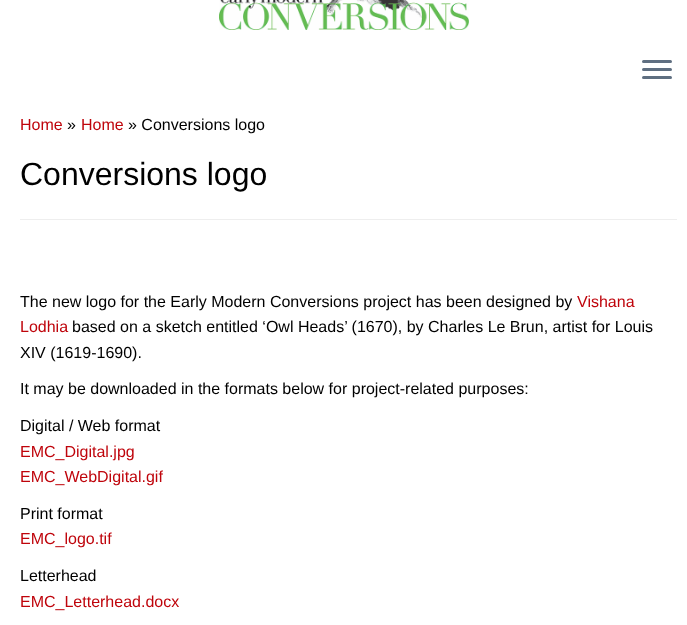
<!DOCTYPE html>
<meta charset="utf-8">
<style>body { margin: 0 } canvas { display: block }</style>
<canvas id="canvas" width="687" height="625"></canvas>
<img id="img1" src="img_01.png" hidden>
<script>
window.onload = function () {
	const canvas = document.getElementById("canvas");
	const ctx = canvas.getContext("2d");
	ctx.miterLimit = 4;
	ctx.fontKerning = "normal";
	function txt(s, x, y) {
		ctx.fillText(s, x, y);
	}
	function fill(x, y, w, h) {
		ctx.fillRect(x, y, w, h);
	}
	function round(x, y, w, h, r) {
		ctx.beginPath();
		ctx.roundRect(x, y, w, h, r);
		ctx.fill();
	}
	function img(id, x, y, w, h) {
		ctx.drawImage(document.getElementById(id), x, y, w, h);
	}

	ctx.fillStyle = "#FFFFFF";
	fill(0, 0, 687, 625);
	img("img1", 219, 0, 250, 30);
	ctx.fillStyle = "#5F6F81";
	round(642, 60, 30, 3, 1.5);
	round(642, 68, 30, 3, 1.5);
	round(642, 76, 30, 3, 1.5);
	ctx.fillStyle = "#EEEEEE";
	fill(20, 219, 657, 1);
	ctx.font = "16px Liberation Sans";
	ctx.fillStyle = "#BF040B";
	txt("Home", 20, 130);
	ctx.fillStyle = "#000000";
	txt("»", 67, 130);
	ctx.fillStyle = "#BF040B";
	txt("Home", 81, 130);
	ctx.fillStyle = "#000000";
	txt("» Conversions logo", 128, 130);
	ctx.font = "32px Liberation Sans";
	txt("Conversions logo", 20, 185);
	ctx.font = "16px Liberation Sans";
	txt("The new logo for the Early Modern Conversions project has been designed by", 20, 307);
	ctx.fillStyle = "#BF040B";
	txt("Vishana", 577, 307);
	txt("Lodhia", 20, 332);
	ctx.fillStyle = "#000000";
	txt("based on a sketch entitled ‘Owl Heads’ (1670), by Charles Le Brun, artist for Louis", 72, 332);
	txt("XIV (1619-1690).", 20, 358);
	txt("It may be downloaded in the formats below for project-related purposes:", 20, 394);
	txt("Digital / Web format", 20, 431);
	ctx.fillStyle = "#BF040B";
	txt("EMC_Digital.jpg", 20, 457);
	txt("EMC_WebDigital.gif", 20, 482);
	ctx.fillStyle = "#000000";
	txt("Print format", 20, 519);
	ctx.fillStyle = "#BF040B";
	txt("EMC_logo.tif", 20, 544);
	ctx.fillStyle = "#000000";
	txt("Letterhead", 20, 581);
	ctx.fillStyle = "#BF040B";
	txt("EMC_Letterhead.docx", 20, 607);
};
</script>
